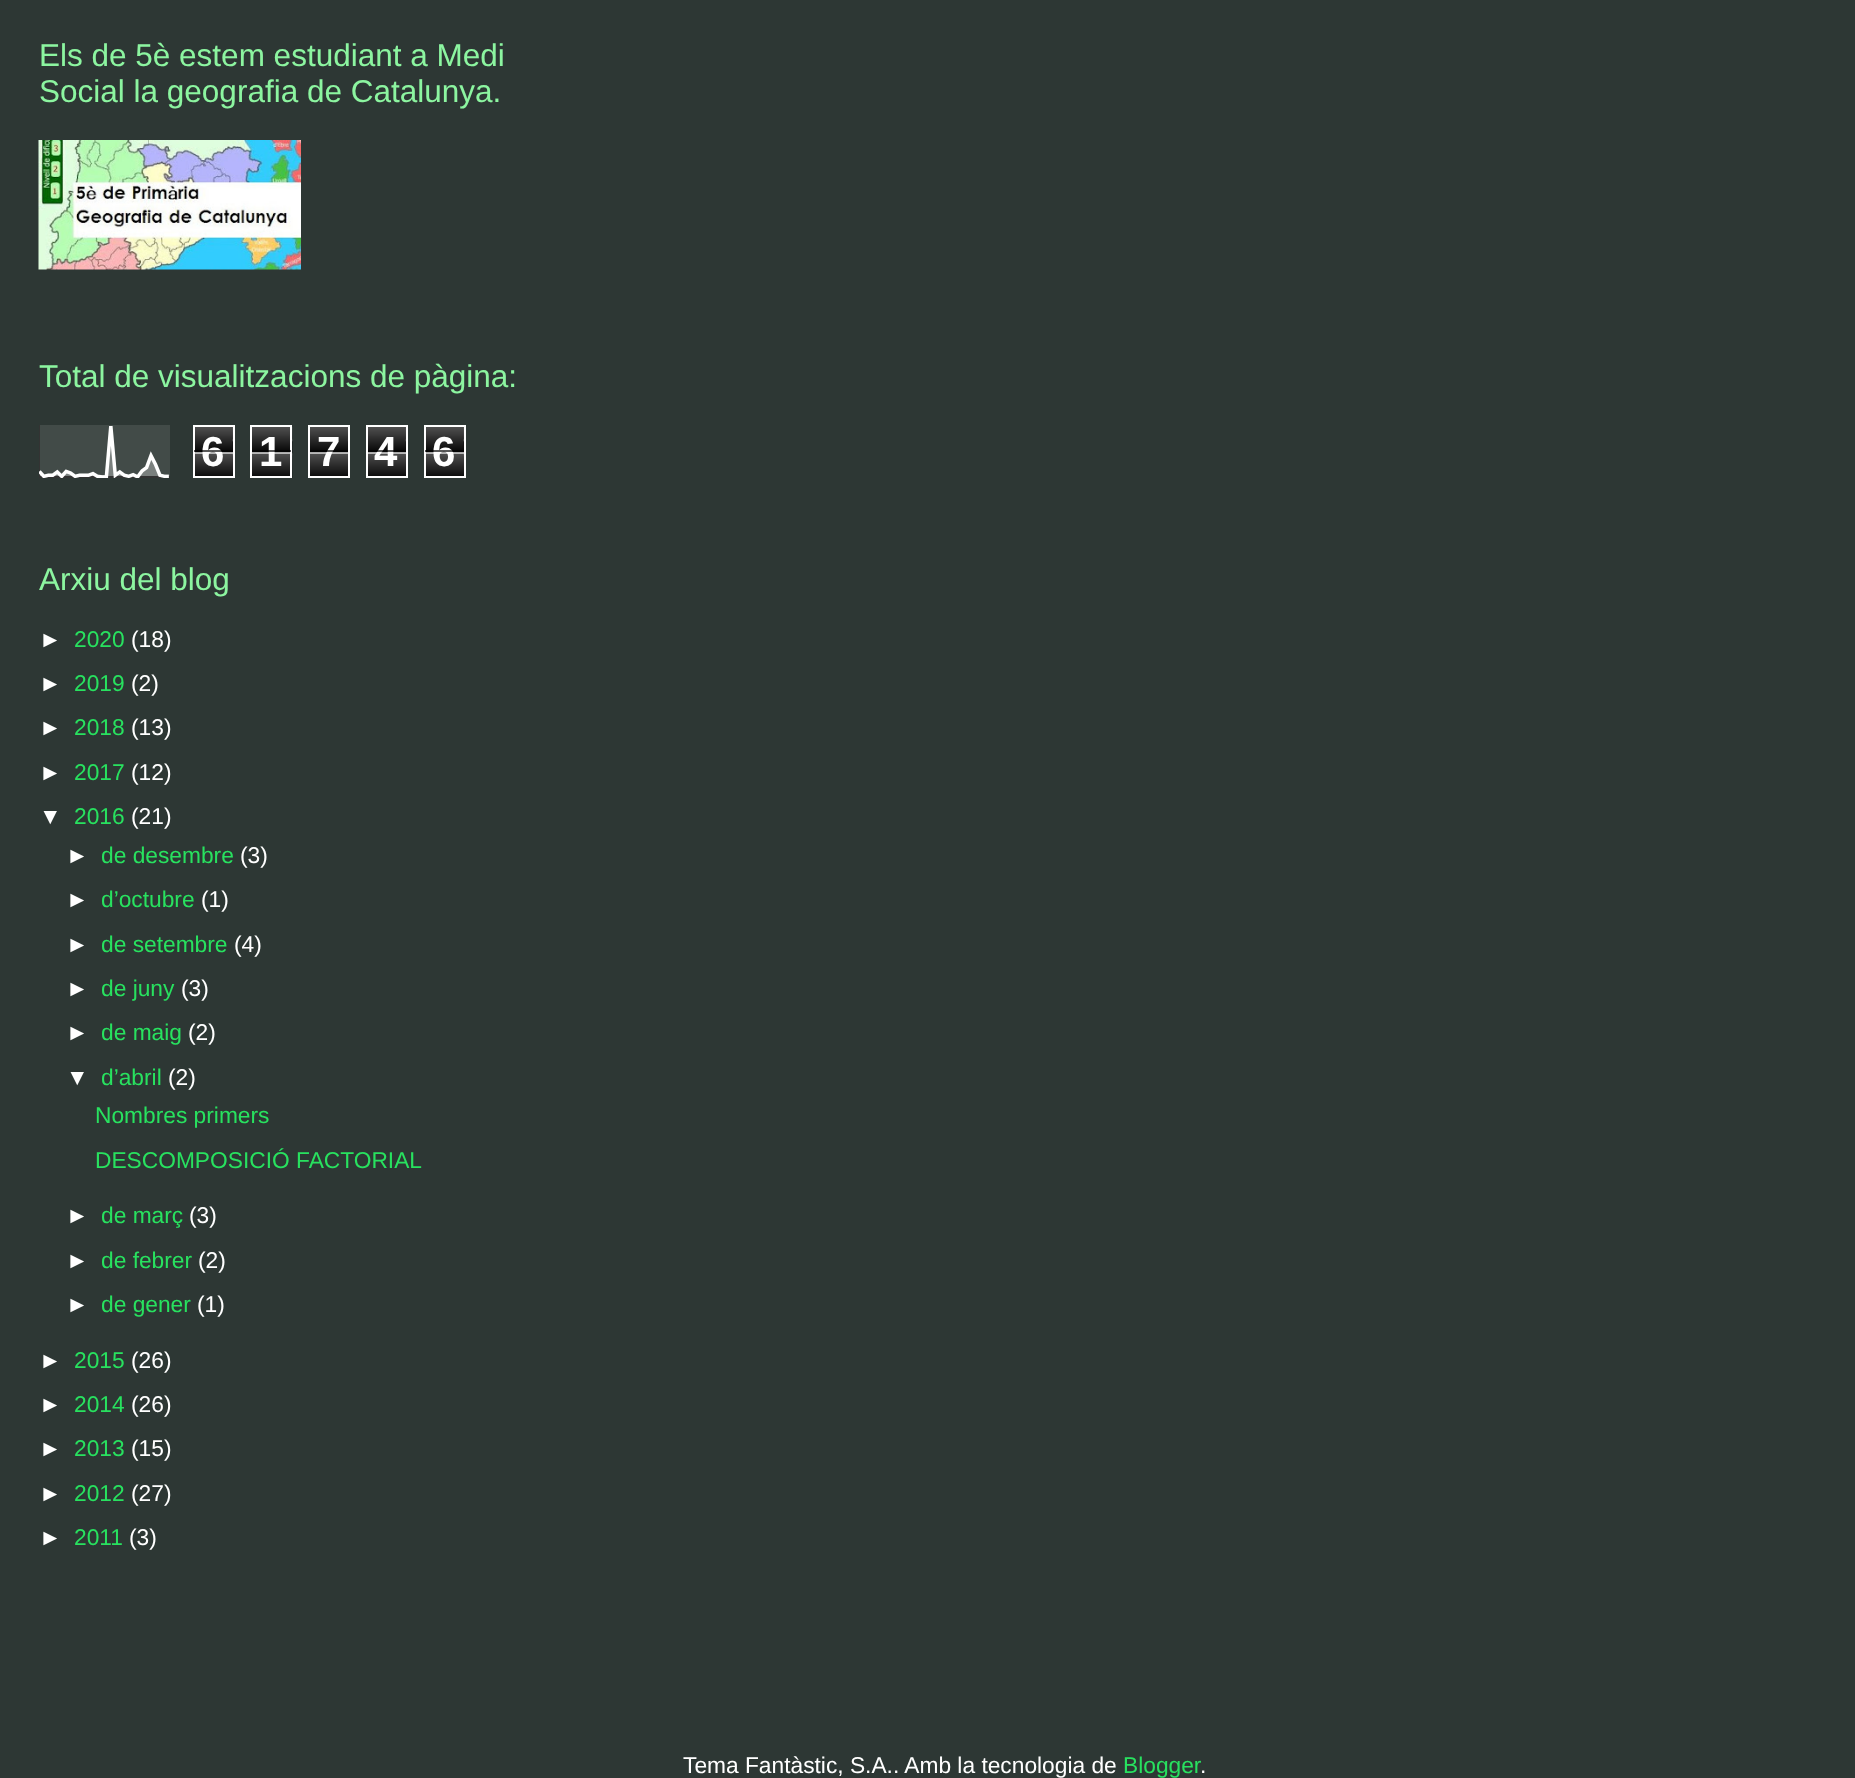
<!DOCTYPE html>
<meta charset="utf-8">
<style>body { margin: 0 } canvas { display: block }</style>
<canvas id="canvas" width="1855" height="1778"></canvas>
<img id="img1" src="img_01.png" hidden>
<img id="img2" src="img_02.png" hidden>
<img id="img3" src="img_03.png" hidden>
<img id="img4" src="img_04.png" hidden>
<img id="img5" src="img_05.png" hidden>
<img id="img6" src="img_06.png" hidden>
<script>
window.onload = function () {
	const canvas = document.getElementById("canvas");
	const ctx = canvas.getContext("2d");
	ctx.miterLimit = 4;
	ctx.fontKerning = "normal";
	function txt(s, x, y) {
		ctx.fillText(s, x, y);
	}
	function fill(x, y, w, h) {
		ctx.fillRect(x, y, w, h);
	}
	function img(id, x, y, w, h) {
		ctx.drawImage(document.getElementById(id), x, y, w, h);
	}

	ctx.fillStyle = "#2D3734";
	fill(0, 0, 1855, 1778);
	img("img1", 38, 140, 263, 130);
	img("img2", 39, 425, 131, 53);
	img("img3", 195, 427, 38, 49);
	ctx.strokeStyle = "#FFFFFF";
	ctx.lineWidth = 2;
	ctx.strokeRect(194, 426, 40, 51);
	img("img4", 252, 427, 41, 51);
	ctx.strokeRect(251, 426, 40, 51);
	img("img5", 310, 427, 38, 49);
	ctx.strokeRect(309, 426, 40, 51);
	img("img6", 368, 427, 38, 49);
	ctx.strokeRect(367, 426, 40, 51);
	img("img3", 426, 427, 38, 49);
	ctx.strokeRect(425, 426, 40, 51);
	ctx.font = "31.5px Liberation Sans";
	ctx.fillStyle = "#8CF5A0";
	txt("Els de 5è estem estudiant a Medi", 39, 66);
	txt("Social la geografia de Catalunya.", 39, 102);
	txt("Total de visualitzacions de pàgina:", 39, 387);
	ctx.font = "bold 42px Liberation Sans";
	ctx.fillStyle = "#FFFFFF";
	txt("6", 201, 466);
	ctx.fillStyle = "rgba(0, 0, 0, 0.65)";
	fill(194, 450, 39, 2);
	ctx.fillStyle = "rgba(255, 255, 255, 0.65)";
	fill(194, 452, 39, 2);
	ctx.fillStyle = "#FFFFFF";
	txt("1", 259, 466);
	ctx.fillStyle = "rgba(0, 0, 0, 0.65)";
	fill(252, 450, 39, 2);
	ctx.fillStyle = "rgba(255, 255, 255, 0.65)";
	fill(252, 452, 39, 2);
	ctx.fillStyle = "#FFFFFF";
	txt("7", 317, 466);
	ctx.fillStyle = "rgba(0, 0, 0, 0.65)";
	fill(310, 450, 38, 2);
	ctx.fillStyle = "rgba(255, 255, 255, 0.65)";
	fill(310, 452, 38, 2);
	ctx.fillStyle = "#FFFFFF";
	txt("4", 374, 466);
	ctx.fillStyle = "rgba(0, 0, 0, 0.65)";
	fill(368, 450, 38, 2);
	ctx.fillStyle = "rgba(255, 255, 255, 0.65)";
	fill(368, 452, 38, 2);
	ctx.fillStyle = "#FFFFFF";
	txt("6", 432, 466);
	ctx.fillStyle = "rgba(0, 0, 0, 0.65)";
	fill(425, 450, 39, 2);
	ctx.fillStyle = "rgba(255, 255, 255, 0.65)";
	fill(425, 452, 39, 2);
	ctx.font = "31.5px Liberation Sans";
	ctx.fillStyle = "#8CF5A0";
	txt("Arxiu del blog", 39, 590);
	ctx.font = "22.75px Liberation Sans";
	ctx.fillStyle = "#FFFFFF";
	txt("►", 39, 647);
	ctx.fillStyle = "#28E15F";
	txt("2020", 74, 647);
	ctx.fillStyle = "#FFFFFF";
	txt("(18)", 131, 647);
	txt("►", 39, 691);
	ctx.fillStyle = "#28E15F";
	txt("2019", 74, 691);
	ctx.fillStyle = "#FFFFFF";
	txt("(2)", 131, 691);
	txt("►", 39, 735);
	ctx.fillStyle = "#28E15F";
	txt("2018", 74, 735);
	ctx.fillStyle = "#FFFFFF";
	txt("(13)", 131, 735);
	txt("►", 39, 780);
	ctx.fillStyle = "#28E15F";
	txt("2017", 74, 780);
	ctx.fillStyle = "#FFFFFF";
	txt("(12)", 131, 780);
	txt("▼", 39, 824);
	ctx.fillStyle = "#28E15F";
	txt("2016", 74, 824);
	ctx.fillStyle = "#FFFFFF";
	txt("(21)", 131, 824);
	txt("►", 66, 863);
	ctx.fillStyle = "#28E15F";
	txt("de desembre", 101, 863);
	ctx.fillStyle = "#FFFFFF";
	txt("(3)", 240, 863);
	txt("►", 66, 907);
	ctx.fillStyle = "#28E15F";
	txt("d’octubre", 101, 907);
	ctx.fillStyle = "#FFFFFF";
	txt("(1)", 201, 907);
	txt("►", 66, 952);
	ctx.fillStyle = "#28E15F";
	txt("de setembre", 101, 952);
	ctx.fillStyle = "#FFFFFF";
	txt("(4)", 234, 952);
	txt("►", 66, 996);
	ctx.fillStyle = "#28E15F";
	txt("de juny", 101, 996);
	ctx.fillStyle = "#FFFFFF";
	txt("(3)", 181, 996);
	txt("►", 66, 1040);
	ctx.fillStyle = "#28E15F";
	txt("de maig", 101, 1040);
	ctx.fillStyle = "#FFFFFF";
	txt("(2)", 188, 1040);
	txt("▼", 66, 1085);
	ctx.fillStyle = "#28E15F";
	txt("d’abril", 101, 1085);
	ctx.fillStyle = "#FFFFFF";
	txt("(2)", 168, 1085);
	ctx.fillStyle = "#28E15F";
	txt("Nombres primers", 95, 1123);
	txt("DESCOMPOSICIÓ FACTORIAL", 95, 1168);
	ctx.fillStyle = "#FFFFFF";
	txt("►", 66, 1223);
	ctx.fillStyle = "#28E15F";
	txt("de març", 101, 1223);
	ctx.fillStyle = "#FFFFFF";
	txt("(3)", 189, 1223);
	txt("►", 66, 1268);
	ctx.fillStyle = "#28E15F";
	txt("de febrer", 101, 1268);
	ctx.fillStyle = "#FFFFFF";
	txt("(2)", 198, 1268);
	txt("►", 66, 1312);
	ctx.fillStyle = "#28E15F";
	txt("de gener", 101, 1312);
	ctx.fillStyle = "#FFFFFF";
	txt("(1)", 197, 1312);
	txt("►", 39, 1368);
	ctx.fillStyle = "#28E15F";
	txt("2015", 74, 1368);
	ctx.fillStyle = "#FFFFFF";
	txt("(26)", 131, 1368);
	txt("►", 39, 1412);
	ctx.fillStyle = "#28E15F";
	txt("2014", 74, 1412);
	ctx.fillStyle = "#FFFFFF";
	txt("(26)", 131, 1412);
	txt("►", 39, 1456);
	ctx.fillStyle = "#28E15F";
	txt("2013", 74, 1456);
	ctx.fillStyle = "#FFFFFF";
	txt("(15)", 131, 1456);
	txt("►", 39, 1501);
	ctx.fillStyle = "#28E15F";
	txt("2012", 74, 1501);
	ctx.fillStyle = "#FFFFFF";
	txt("(27)", 131, 1501);
	txt("►", 39, 1545);
	ctx.fillStyle = "#28E15F";
	txt("2011", 74, 1545);
	ctx.fillStyle = "#FFFFFF";
	txt("(3)", 129, 1545);
	txt("Tema Fantàstic, S.A.. Amb la tecnologia de", 683, 1773);
	ctx.fillStyle = "#28E15F";
	txt("Blogger", 1123, 1773);
	ctx.fillStyle = "#FFFFFF";
	txt(".", 1200, 1773);
};
</script>
